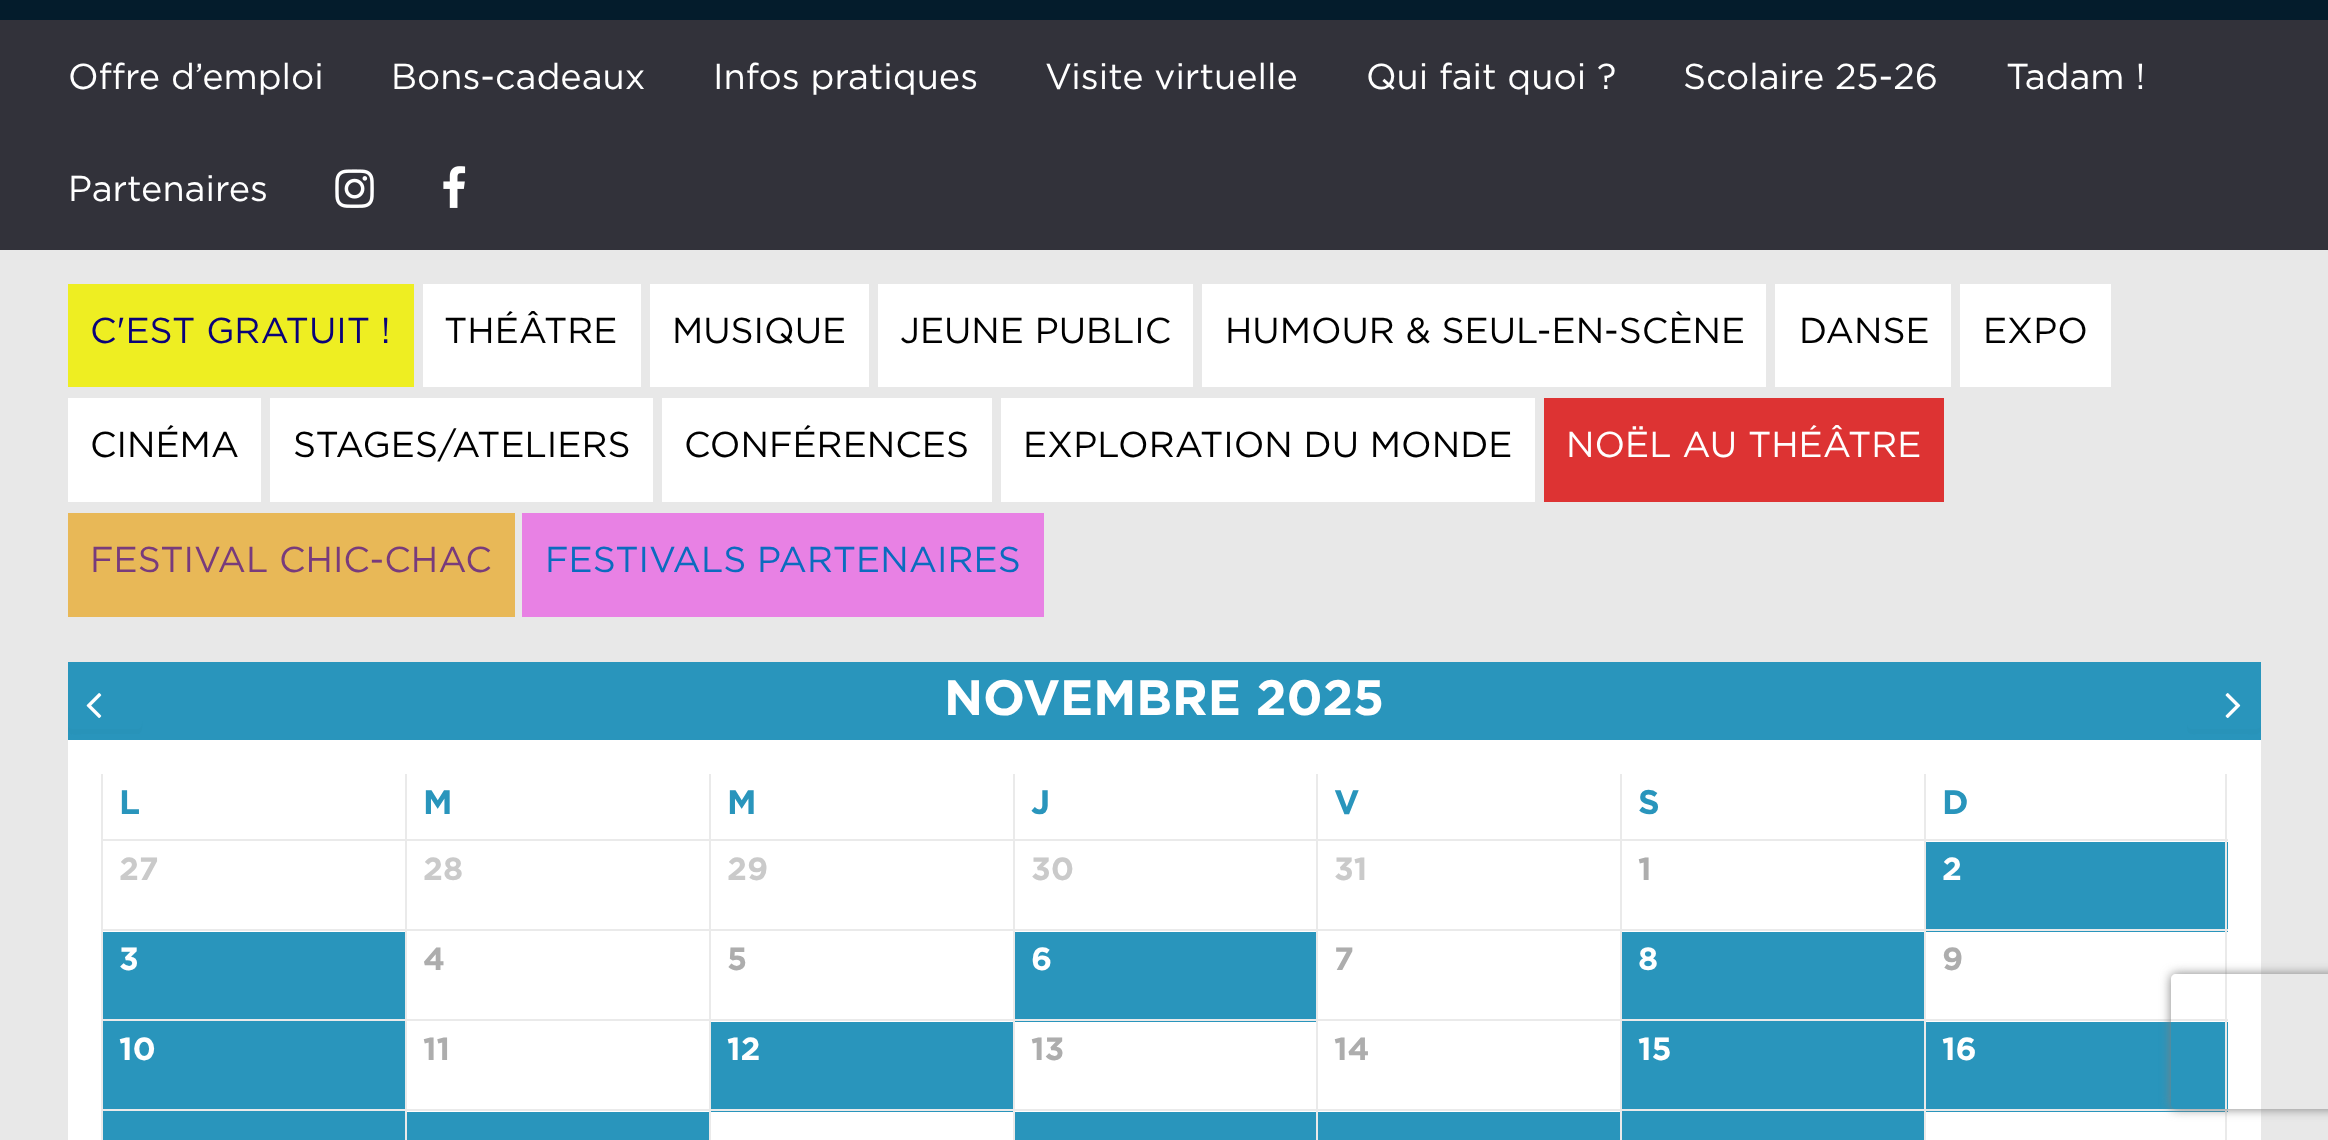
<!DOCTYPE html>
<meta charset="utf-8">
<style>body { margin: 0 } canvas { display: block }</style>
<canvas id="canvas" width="2328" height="1140"></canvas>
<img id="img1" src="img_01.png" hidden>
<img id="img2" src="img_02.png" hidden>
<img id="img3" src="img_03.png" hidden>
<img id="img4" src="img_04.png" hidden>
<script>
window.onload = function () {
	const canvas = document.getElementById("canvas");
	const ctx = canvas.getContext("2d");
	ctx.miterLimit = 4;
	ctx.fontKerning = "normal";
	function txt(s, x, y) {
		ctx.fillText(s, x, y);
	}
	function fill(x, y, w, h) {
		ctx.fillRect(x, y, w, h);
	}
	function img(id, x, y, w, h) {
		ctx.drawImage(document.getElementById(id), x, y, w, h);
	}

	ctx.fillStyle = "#041C2C";
	fill(0, 0, 2328, 1140);
	ctx.fillStyle = "#32323A";
	fill(0, 20, 2328, 230);
	img("img1", 335, 169, 39, 39);
	img("img2", 443, 166, 23, 42);
	ctx.fillStyle = "#E8E8E8";
	fill(0, 250, 2328, 890);
	ctx.fillStyle = "#EEEE22";
	fill(68, 284, 346, 103);
	ctx.fillStyle = "#FFFFFF";
	fill(423, 284, 218, 103);
	fill(650, 284, 219, 103);
	fill(878, 284, 315, 103);
	fill(1202, 284, 564, 103);
	fill(1775, 284, 176, 103);
	fill(1960, 284, 151, 103);
	fill(68, 398, 193, 104);
	fill(270, 398, 383, 104);
	fill(662, 398, 330, 104);
	fill(1001, 398, 534, 104);
	ctx.fillStyle = "#DD3333";
	fill(1544, 398, 400, 104);
	ctx.fillStyle = "#E8B857";
	fill(68, 513, 447, 104);
	ctx.fillStyle = "#E881E4";
	fill(522, 513, 522, 104);
	ctx.fillStyle = "#FFFFFF";
	fill(68, 740, 2193, 400);
	ctx.fillStyle = "#2995BC";
	fill(68, 662, 2193, 78);
	ctx.fillStyle = "#2893B9";
	ctx.beginPath();
	ctx.moveTo(68, 727);
	ctx.bezierCurveTo(68, 737, 75, 734, 84, 734);
	ctx.lineTo(137, 734);
	ctx.bezierCurveTo(144, 734, 142, 723, 142, 719);
	ctx.lineTo(142, 669);
	ctx.lineTo(142, 724);
	ctx.bezierCurveTo(142, 727, 140, 729, 137, 729);
	ctx.lineTo(72, 729);
	ctx.bezierCurveTo(70, 729, 69, 728, 68, 727);
	ctx.closePath();
	ctx.fill();
	img("img3", 86, 693, 16, 25);
	ctx.beginPath();
	ctx.moveTo(2187, 724);
	ctx.bezierCurveTo(2187, 736, 2190, 734, 2203, 734);
	ctx.lineTo(2245, 734);
	ctx.bezierCurveTo(2255, 734, 2261, 737, 2261, 726);
	ctx.bezierCurveTo(2260, 728, 2259, 729, 2257, 729);
	ctx.lineTo(2192, 729);
	ctx.bezierCurveTo(2189, 729, 2187, 727, 2187, 724);
	ctx.closePath();
	ctx.fill();
	img("img4", 2225, 693, 16, 25);
	ctx.fillStyle = "#EAEAEA";
	fill(101, 839, 1823, 2);
	fill(101, 774, 2, 68);
	fill(405, 774, 2, 68);
	fill(709, 774, 2, 68);
	fill(1013, 774, 2, 68);
	fill(1316, 774, 2, 68);
	fill(1620, 774, 2, 68);
	fill(2225, 774, 2, 68);
	fill(1924, 839, 304, 2);
	fill(1924, 774, 2, 68);
	fill(101, 929, 1823, 2);
	fill(101, 842, 2, 90);
	fill(405, 842, 2, 90);
	fill(709, 842, 2, 90);
	fill(1013, 842, 2, 90);
	fill(1316, 842, 2, 90);
	fill(1620, 842, 2, 90);
	ctx.fillStyle = "#2995BC";
	fill(1926, 842, 302, 90);
	ctx.fillStyle = "#EAEAEA";
	fill(2225, 842, 2, 180);
	fill(1924, 929, 304, 2);
	fill(1924, 842, 2, 90);
	ctx.fillStyle = "#2995BC";
	fill(103, 932, 302, 208);
	ctx.fillStyle = "#EAEAEA";
	fill(101, 1019, 912, 2);
	fill(101, 932, 2, 90);
	fill(405, 932, 2, 90);
	fill(709, 932, 2, 90);
	ctx.fillStyle = "#2995BC";
	fill(1015, 932, 301, 90);
	ctx.fillStyle = "#EAEAEA";
	fill(1013, 1019, 607, 2);
	fill(1013, 932, 2, 90);
	fill(1316, 932, 2, 90);
	ctx.fillStyle = "#2995BC";
	fill(1622, 932, 302, 208);
	ctx.fillStyle = "#EAEAEA";
	fill(1620, 1019, 608, 2);
	fill(1620, 932, 2, 90);
	fill(1924, 932, 2, 90);
	fill(101, 1109, 608, 2);
	fill(101, 1022, 2, 118);
	fill(405, 1022, 2, 118);
	ctx.fillStyle = "#2995BC";
	fill(711, 1022, 302, 90);
	ctx.fillStyle = "#EAEAEA";
	fill(709, 1109, 1215, 2);
	fill(709, 1022, 2, 118);
	fill(1013, 1022, 2, 118);
	fill(1316, 1022, 2, 118);
	fill(1620, 1022, 2, 118);
	ctx.fillStyle = "#2995BC";
	fill(1926, 1022, 302, 90);
	ctx.fillStyle = "#EAEAEA";
	fill(2225, 1022, 2, 118);
	fill(1924, 1109, 304, 2);
	fill(1924, 1022, 2, 118);
	ctx.fillStyle = "#2995BC";
	fill(407, 1112, 302, 28);
	fill(1015, 1112, 301, 28);
	fill(1318, 1112, 302, 28);
	ctx.save();
	ctx.beginPath();
	ctx.moveTo(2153, 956);
	ctx.lineTo(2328, 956);
	ctx.lineTo(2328, 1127);
	ctx.lineTo(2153, 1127);
	ctx.closePath();
	ctx.moveTo(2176, 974);
	ctx.lineTo(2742, 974);
	ctx.bezierCurveTo(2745, 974, 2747, 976, 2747, 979);
	ctx.lineTo(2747, 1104);
	ctx.bezierCurveTo(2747, 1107, 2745, 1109, 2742, 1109);
	ctx.lineTo(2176, 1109);
	ctx.bezierCurveTo(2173, 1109, 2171, 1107, 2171, 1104);
	ctx.lineTo(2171, 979);
	ctx.bezierCurveTo(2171, 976, 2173, 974, 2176, 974);
	ctx.closePath();
	ctx.clip("evenodd");
	ctx.fillStyle = "#808080";
	ctx.filter = "blur(5.5px)";
	ctx.beginPath();
	ctx.roundRect(2171, 974, 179, 135, 5);
	ctx.fill();
	ctx.filter = "none";
	ctx.restore();
	ctx.font = "36px Gotham";
	ctx.fillStyle = "#FFFFFF";
	txt("Offre d’emploi", 68, 89);
	txt("Bons-cadeaux", 391, 89);
	txt("Infos pratiques", 713, 89);
	txt("Visite virtuelle", 1045, 89);
	txt("Qui fait quoi ?", 1366, 89);
	txt("Scolaire 25-26", 1683, 89);
	txt("Tadam !", 2006, 89);
	txt("Partenaires", 68, 201);
	ctx.fillStyle = "#0A027A";
	txt("C'EST GRATUIT !", 90, 343);
	ctx.fillStyle = "#000000";
	txt("THÉÂTRE", 444, 343);
	txt("MUSIQUE", 672, 343);
	txt("JEUNE PUBLIC", 900, 343);
	txt("HUMOUR & SEUL-EN-SCÈNE", 1225, 343);
	txt("DANSE", 1799, 343);
	txt("EXPO", 1983, 343);
	txt("CINÉMA", 90, 457);
	txt("STAGES/ATELIERS", 293, 457);
	txt("CONFÉRENCES", 684, 457);
	txt("EXPLORATION DU MONDE", 1023, 457);
	ctx.fillStyle = "#FFFFFF";
	txt("NOËL AU THÉÂTRE", 1566, 457);
	ctx.fillStyle = "#783B7C";
	txt("FESTIVAL CHIC-CHAC", 90, 572);
	ctx.fillStyle = "#0B6BBF";
	txt("FESTIVALS PARTENAIRES", 545, 572);
	ctx.font = "bold 49.5px Gotham";
	ctx.fillStyle = "#FFFFFF";
	txt("NOVEMBRE 2025", 944, 715);
	ctx.font = "bold 34px Gotham";
	ctx.fillStyle = "#2995BC";
	txt("L", 119, 814);
	txt("M", 423, 814);
	txt("M", 727, 814);
	txt("J", 1031, 814);
	txt("V", 1334, 814);
	txt("S", 1638, 814);
	txt("D", 1942, 814);
	ctx.font = "bold 32px Gotham";
	ctx.fillStyle = "#CACACA";
	txt("27", 119, 880);
	txt("28", 423, 880);
	txt("29", 727, 880);
	txt("30", 1031, 880);
	txt("31", 1334, 880);
	ctx.fillStyle = "#ADADAD";
	txt("1", 1638, 880);
	ctx.fillStyle = "#FFFFFF";
	txt("2", 1942, 880);
	txt("3", 119, 970);
	ctx.fillStyle = "#ADADAD";
	txt("4", 423, 970);
	txt("5", 727, 970);
	ctx.fillStyle = "#FFFFFF";
	txt("6", 1031, 970);
	ctx.fillStyle = "#ADADAD";
	txt("7", 1334, 970);
	ctx.fillStyle = "#FFFFFF";
	txt("8", 1638, 970);
	ctx.fillStyle = "#ADADAD";
	txt("9", 1942, 970);
	ctx.fillStyle = "#FFFFFF";
	txt("10", 119, 1060);
	ctx.fillStyle = "#ADADAD";
	txt("11", 423, 1060);
	ctx.fillStyle = "#FFFFFF";
	txt("12", 727, 1060);
	ctx.fillStyle = "#ADADAD";
	txt("13", 1031, 1060);
	txt("14", 1334, 1060);
	ctx.fillStyle = "#FFFFFF";
	txt("15", 1638, 1060);
	txt("16", 1942, 1060);
};
</script>
